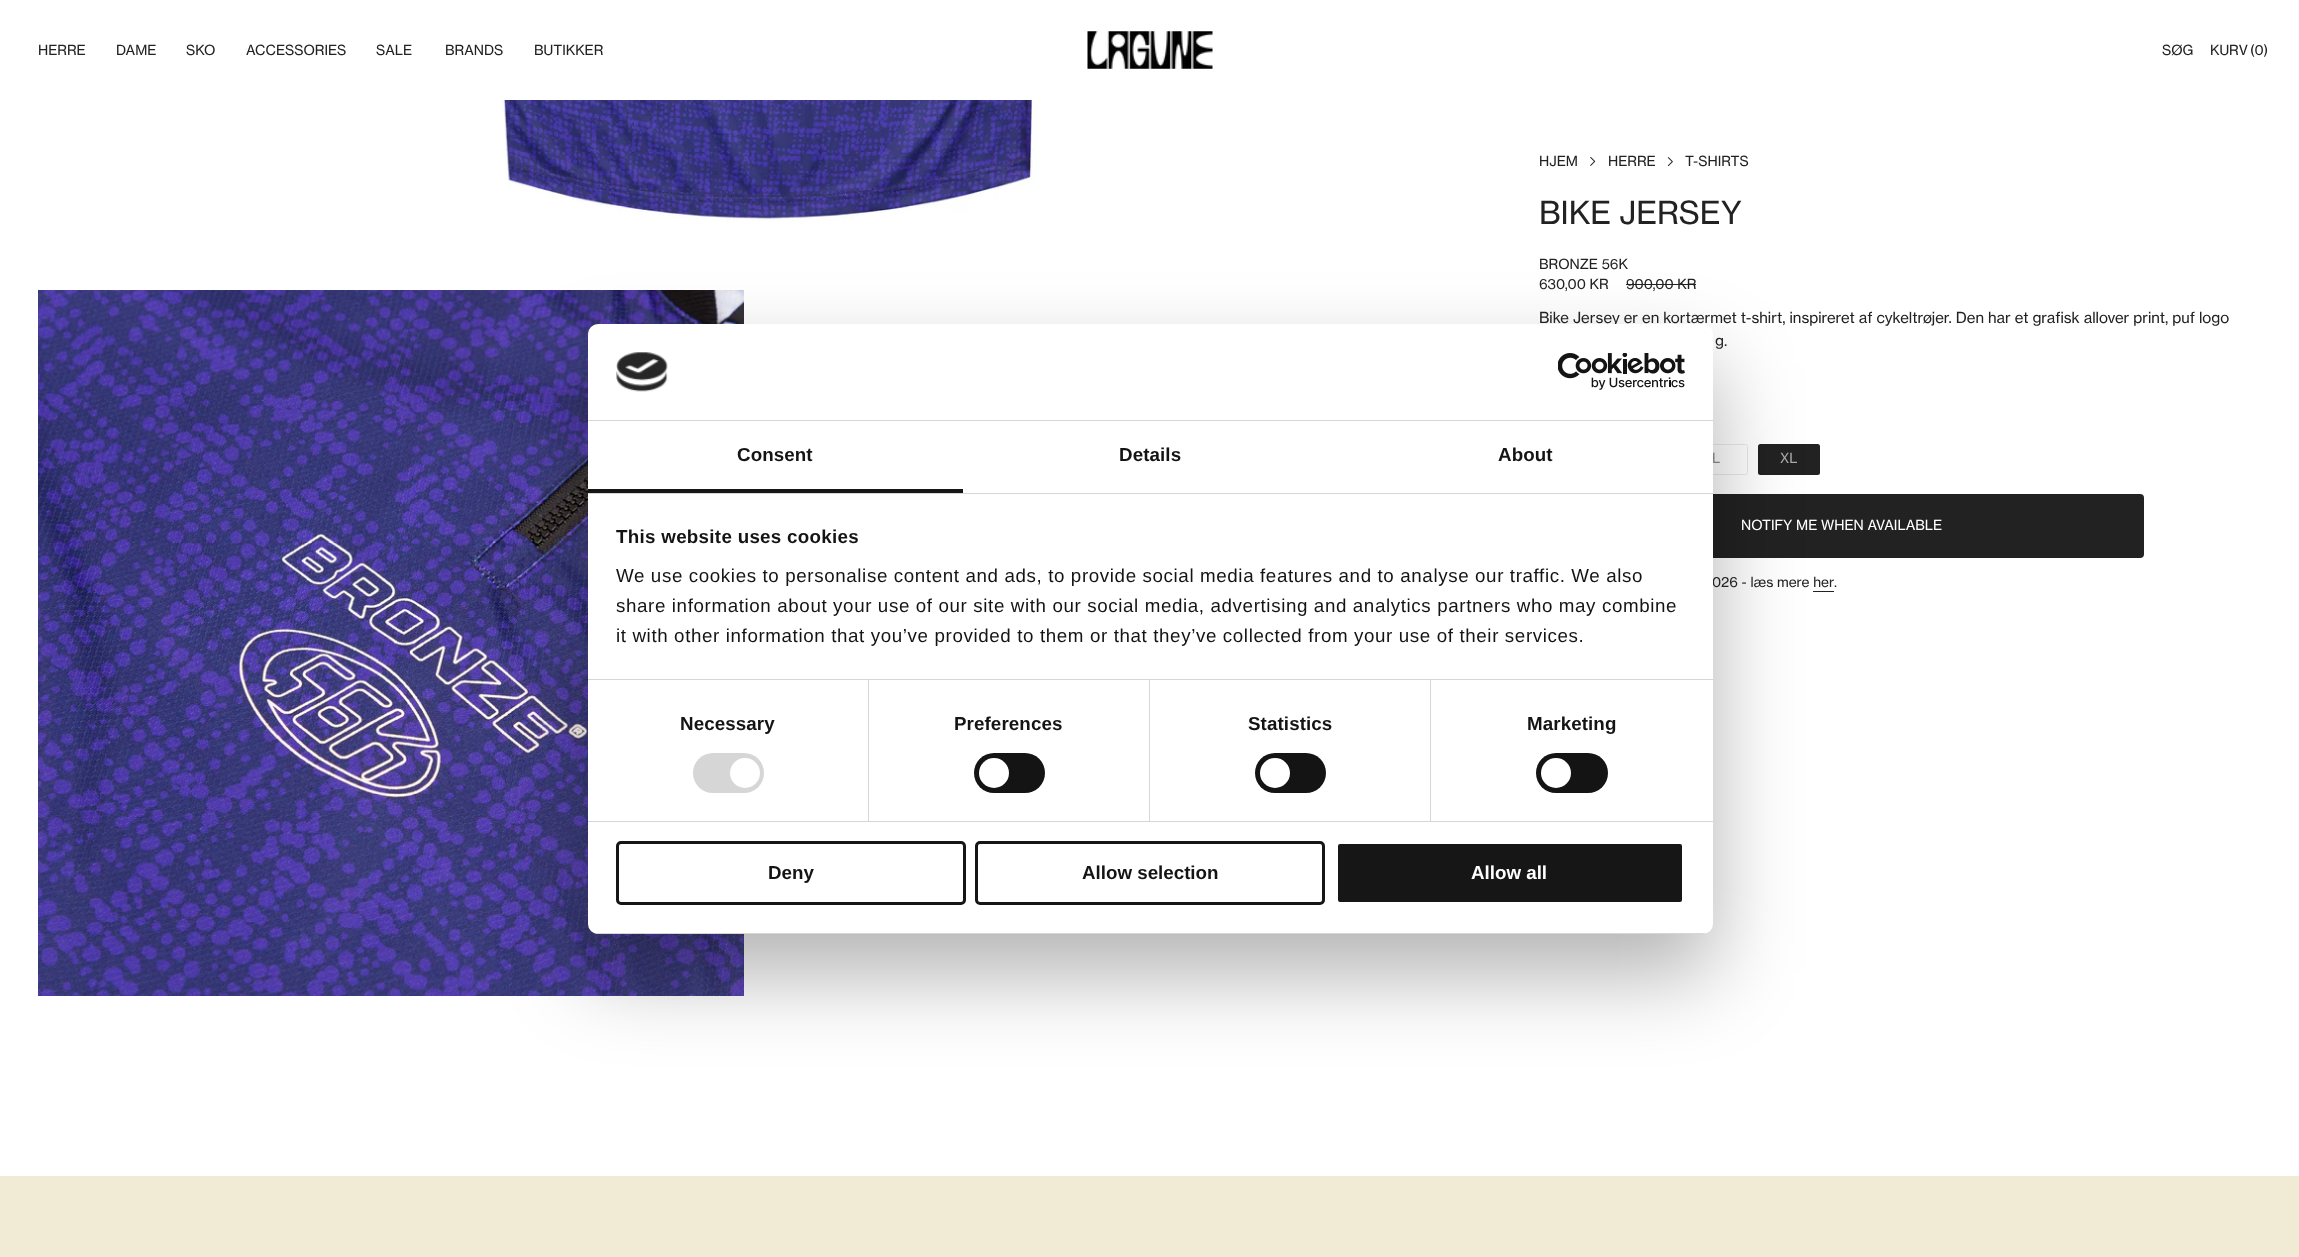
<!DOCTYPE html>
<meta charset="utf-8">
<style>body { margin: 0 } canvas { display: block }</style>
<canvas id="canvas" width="2299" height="1257"></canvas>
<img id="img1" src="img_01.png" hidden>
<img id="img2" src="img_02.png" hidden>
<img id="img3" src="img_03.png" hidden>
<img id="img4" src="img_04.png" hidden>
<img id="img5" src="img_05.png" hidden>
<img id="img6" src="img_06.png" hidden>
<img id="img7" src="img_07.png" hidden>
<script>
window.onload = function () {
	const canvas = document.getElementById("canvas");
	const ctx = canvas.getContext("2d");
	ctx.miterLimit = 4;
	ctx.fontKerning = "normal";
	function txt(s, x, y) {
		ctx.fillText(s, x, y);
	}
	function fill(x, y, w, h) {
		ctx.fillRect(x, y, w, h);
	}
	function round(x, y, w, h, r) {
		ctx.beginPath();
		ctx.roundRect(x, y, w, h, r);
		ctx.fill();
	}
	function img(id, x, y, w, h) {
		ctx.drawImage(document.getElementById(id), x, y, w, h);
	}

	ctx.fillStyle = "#FFFFFF";
	fill(0, 0, 2299, 1257);
	img("img1", 1087, 31, 126, 38);
	img("img2", 497, 100, 540, 121);
	img("img3", 38, 290, 706, 706);
	img("img4", 1590, 157, 6, 9);
	img("img5", 1667, 157, 6, 9);
	ctx.fillStyle = "#222222";
	fill(1626, 284, 70, 1);
	ctx.beginPath();
	ctx.roundRect(1685.5, 444.5, 62, 30, 2);
	ctx.strokeStyle = "#E9E9E9";
	ctx.stroke();
	round(1758, 444, 62, 31, 2.5);
	ctx.beginPath();
	ctx.roundRect(1758.5, 444.5, 61, 30, 2);
	ctx.strokeStyle = "rgba(34, 34, 34, 0.1)";
	ctx.stroke();
	round(1539, 494, 605, 64, 4);
	fill(1813, 591, 21, 1);
	ctx.fillStyle = "rgba(0, 0, 0, 0.3)";
	ctx.filter = "blur(42.5px)";
	ctx.beginPath();
	ctx.roundRect(588, 364, 1125, 610, 10);
	ctx.fill();
	ctx.filter = "none";
	ctx.fillStyle = "#F1EAD4";
	fill(0, 1176, 2299, 81);
	ctx.font = "13.75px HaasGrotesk";
	ctx.fillStyle = "#222222";
	txt("HERRE", 38, 55);
	txt("DAME", 116, 55);
	txt("SKO", 186, 55);
	txt("ACCESSORIES", 246, 55);
	txt("SALE", 376, 55);
	txt("BRANDS", 445, 55);
	txt("BUTIKKER", 534, 55);
	txt("SØG", 2162, 55);
	txt("KURV", 2210, 55);
	txt("(0)", 2250, 55);
	txt("HJEM", 1539, 166);
	txt("HERRE", 1608, 166);
	txt("T-SHIRTS", 1685, 166);
	ctx.font = "31.25px HaasGrotesk";
	txt("BIKE JERSEY", 1539, 224);
	ctx.font = "13.75px HaasGrotesk";
	txt("BRONZE 56K", 1539, 269);
	txt("630,00 KR", 1539, 289);
	txt("900,00 KR", 1626, 289);
	ctx.font = "15px HaasGrotesk";
	txt("Bike Jersey er en kortærmet t-shirt, inspireret af cykeltrøjer. Den har et grafisk allover print, puf logo", 1539, 323);
	txt("g.", 1715, 346);
	ctx.font = "13.75px HaasGrotesk";
	ctx.fillStyle = "#7A7A7A";
	txt("L", 1712, 463);
	ctx.fillStyle = "#A7A7A7";
	txt("XL", 1780, 463);
	ctx.fillStyle = "#FFFFFF";
	txt("NOTIFY ME WHEN AVAILABLE", 1741, 530);
	ctx.fillStyle = "#222222";
	txt("026 - læs mere her", 1712, 587);
	txt(".", 1834, 587);
	ctx.fillStyle = "#FFFFFF";
	round(588, 324, 1125, 610, 10);
	ctx.fillStyle = "#D6D6D6";
	fill(588, 420, 1125, 1);
	img("img6", 616, 352, 52, 40);
	img("img7", 1558, 353, 127, 37);
	fill(588, 493, 1125, 1);
	ctx.fillStyle = "#161616";
	fill(588, 489, 375, 4);
	ctx.letterSpacing = "0.1px";
	ctx.font = "bold 18.75px Liberation Sans";
	ctx.fillStyle = "#141414";
	txt("Consent", 737, 461);
	txt("Details", 1119, 461);
	txt("About", 1498, 461);
	ctx.fillStyle = "#D6D6D6";
	fill(588, 679, 1125, 1);
	ctx.letterSpacing = "0.3px";
	ctx.fillStyle = "#141414";
	txt("This website uses cookies", 616, 543);
	ctx.letterSpacing = "0.62px";
	ctx.font = "18.75px Liberation Sans";
	txt("We use cookies to personalise content and ads, to provide social media features and to analyse our traffic. We also", 616, 582);
	txt("share information about your use of our site with our social media, advertising and analytics partners who may combine", 616, 612);
	txt("it with other information that you’ve provided to them or that they’ve collected from your use of their services.", 616, 642);
	ctx.fillStyle = "#D6D6D6";
	fill(588, 821, 1125, 1);
	fill(868, 680, 1, 141);
	ctx.letterSpacing = "0.1px";
	ctx.font = "bold 18.75px Liberation Sans";
	ctx.fillStyle = "#141414";
	txt("Necessary", 680, 730);
	ctx.fillStyle = "#D6D6D6";
	round(693, 753, 71, 40, 20);
	ctx.fillStyle = "#FFFFFF";
	ctx.beginPath();
	ctx.arc(745, 773, 15, 0, Math.PI * 2);
	ctx.fill();
	ctx.fillStyle = "#D6D6D6";
	fill(1149, 680, 1, 141);
	ctx.fillStyle = "#141414";
	txt("Preferences", 954, 730);
	round(974, 753, 71, 40, 20);
	ctx.fillStyle = "#FFFFFF";
	ctx.beginPath();
	ctx.arc(994, 773, 15, 0, Math.PI * 2);
	ctx.fill();
	ctx.fillStyle = "#D6D6D6";
	fill(1430, 680, 1, 141);
	ctx.fillStyle = "#141414";
	txt("Statistics", 1248, 730);
	round(1255, 753, 71, 40, 20);
	ctx.fillStyle = "#FFFFFF";
	ctx.beginPath();
	ctx.arc(1275, 773, 15, 0, Math.PI * 2);
	ctx.fill();
	ctx.fillStyle = "#141414";
	txt("Marketing", 1527, 730);
	round(1536, 753, 72, 40, 20);
	ctx.fillStyle = "#FFFFFF";
	ctx.beginPath();
	ctx.arc(1556, 773, 15, 0, Math.PI * 2);
	ctx.fill();
	ctx.save();
	ctx.beginPath();
	ctx.roundRect(588, 324, 1125, 610, 10);
	ctx.clip();
	ctx.fillStyle = "#D6D6D6";
	fill(588, 933, 1125, 1);
	ctx.restore();
	ctx.beginPath();
	ctx.roundRect(617.5, 842.5, 347, 61, 3.5);
	ctx.strokeStyle = "#161616";
	ctx.lineWidth = 3;
	ctx.stroke();
	ctx.letterSpacing = "0px";
	ctx.fillStyle = "#141414";
	txt("Deny", 768, 879);
	ctx.beginPath();
	ctx.roundRect(976.5, 842.5, 347, 61, 3.5);
	ctx.stroke();
	txt("Allow selection", 1082, 879);
	ctx.fillStyle = "#161616";
	ctx.beginPath();
	ctx.roundRect(1336.5, 842.5, 347, 61, 3.5);
	ctx.fill();
	ctx.strokeStyle = "#FFFFFF";
	ctx.stroke();
	ctx.fillStyle = "#FFFFFF";
	txt("Allow all", 1471, 879);
};
</script>
